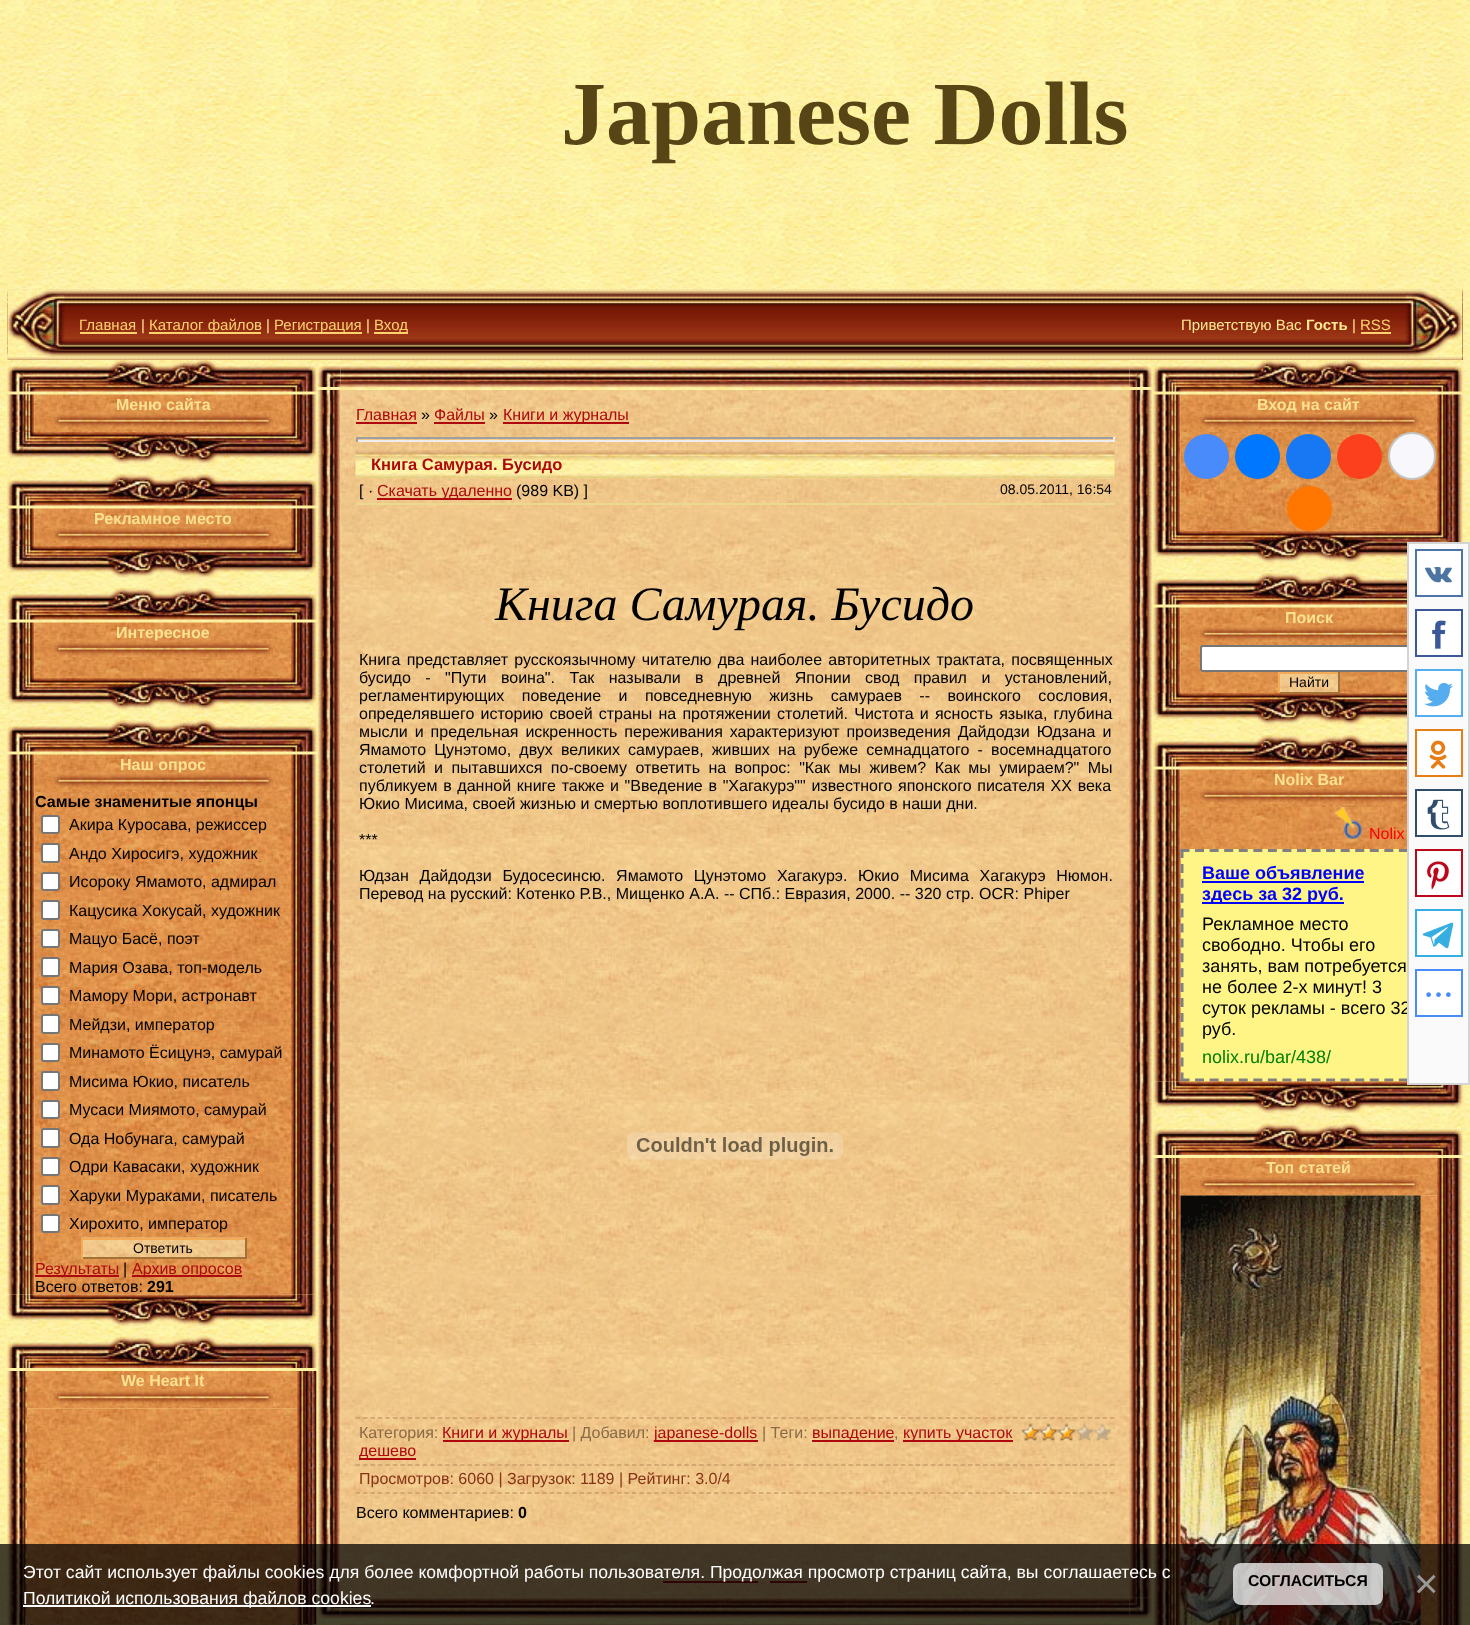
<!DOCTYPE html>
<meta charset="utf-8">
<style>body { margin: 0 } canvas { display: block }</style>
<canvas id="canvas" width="1470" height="1625"></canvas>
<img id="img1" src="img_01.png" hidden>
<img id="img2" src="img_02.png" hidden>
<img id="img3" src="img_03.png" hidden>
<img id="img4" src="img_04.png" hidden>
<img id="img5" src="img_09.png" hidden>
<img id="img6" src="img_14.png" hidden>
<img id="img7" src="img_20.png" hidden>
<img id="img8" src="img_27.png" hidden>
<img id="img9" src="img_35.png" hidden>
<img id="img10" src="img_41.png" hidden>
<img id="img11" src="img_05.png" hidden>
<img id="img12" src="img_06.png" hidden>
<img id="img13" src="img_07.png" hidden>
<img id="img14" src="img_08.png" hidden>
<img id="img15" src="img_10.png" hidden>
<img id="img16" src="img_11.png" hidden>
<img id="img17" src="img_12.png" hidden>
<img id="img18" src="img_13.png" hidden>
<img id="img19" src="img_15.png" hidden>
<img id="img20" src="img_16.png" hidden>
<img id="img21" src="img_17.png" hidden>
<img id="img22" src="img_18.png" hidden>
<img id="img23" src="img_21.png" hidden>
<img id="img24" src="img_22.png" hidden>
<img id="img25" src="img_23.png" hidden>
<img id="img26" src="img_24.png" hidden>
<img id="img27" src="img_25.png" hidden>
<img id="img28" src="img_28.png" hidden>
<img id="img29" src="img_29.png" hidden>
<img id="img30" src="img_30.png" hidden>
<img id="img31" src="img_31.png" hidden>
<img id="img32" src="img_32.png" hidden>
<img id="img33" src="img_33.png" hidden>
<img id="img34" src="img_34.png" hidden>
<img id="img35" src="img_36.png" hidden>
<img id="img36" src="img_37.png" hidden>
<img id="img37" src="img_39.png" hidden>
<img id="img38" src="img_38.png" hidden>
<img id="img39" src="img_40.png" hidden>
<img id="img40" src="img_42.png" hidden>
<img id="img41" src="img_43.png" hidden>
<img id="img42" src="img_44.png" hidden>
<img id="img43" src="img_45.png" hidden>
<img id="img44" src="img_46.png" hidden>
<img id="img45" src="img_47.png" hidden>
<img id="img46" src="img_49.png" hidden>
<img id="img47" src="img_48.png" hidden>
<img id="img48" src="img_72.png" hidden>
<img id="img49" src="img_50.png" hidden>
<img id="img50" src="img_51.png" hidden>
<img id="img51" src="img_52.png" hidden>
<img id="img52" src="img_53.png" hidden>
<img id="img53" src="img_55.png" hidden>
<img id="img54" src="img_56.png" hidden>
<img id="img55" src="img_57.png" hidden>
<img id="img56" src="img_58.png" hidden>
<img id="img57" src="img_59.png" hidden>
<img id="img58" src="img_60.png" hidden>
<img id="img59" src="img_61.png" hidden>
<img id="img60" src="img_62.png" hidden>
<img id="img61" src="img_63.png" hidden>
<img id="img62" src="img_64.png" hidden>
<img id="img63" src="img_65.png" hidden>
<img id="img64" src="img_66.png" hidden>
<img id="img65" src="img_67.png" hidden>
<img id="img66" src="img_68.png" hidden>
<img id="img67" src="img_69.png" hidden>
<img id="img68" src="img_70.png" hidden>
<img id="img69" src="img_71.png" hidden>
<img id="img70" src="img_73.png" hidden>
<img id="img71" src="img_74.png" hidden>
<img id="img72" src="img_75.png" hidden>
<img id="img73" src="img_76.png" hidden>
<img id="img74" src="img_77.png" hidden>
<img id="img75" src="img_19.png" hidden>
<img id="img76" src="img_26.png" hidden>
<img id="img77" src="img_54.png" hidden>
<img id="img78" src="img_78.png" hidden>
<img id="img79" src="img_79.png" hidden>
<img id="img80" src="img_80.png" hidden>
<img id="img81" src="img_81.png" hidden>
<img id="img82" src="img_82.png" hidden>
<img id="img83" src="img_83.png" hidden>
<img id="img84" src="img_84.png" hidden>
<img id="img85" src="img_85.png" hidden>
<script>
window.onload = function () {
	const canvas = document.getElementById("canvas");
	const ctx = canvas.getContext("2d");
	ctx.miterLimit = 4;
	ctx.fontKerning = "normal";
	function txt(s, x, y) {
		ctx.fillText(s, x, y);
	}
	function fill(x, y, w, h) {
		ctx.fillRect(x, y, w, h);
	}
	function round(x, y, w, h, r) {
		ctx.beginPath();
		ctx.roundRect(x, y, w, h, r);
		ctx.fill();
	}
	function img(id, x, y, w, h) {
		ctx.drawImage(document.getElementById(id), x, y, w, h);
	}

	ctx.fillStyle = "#FFFFFF";
	fill(0, 0, 1470, 1625);
	img("img1", 0, 0, 1470, 1625);
	ctx.fillStyle = "#82210A";
	fill(1462, 290, 1, 70);
	img("img2", 7, 289, 1456, 71);
	img("img3", 7, 289, 58, 68);
	ctx.fillStyle = "#FED36F";
	fill(80, 332, 57, 2);
	fill(149, 332, 112, 2);
	fill(275, 332, 87, 2);
	fill(374, 332, 34, 2);
	fill(1361, 332, 30, 2);
	img("img4", 1405, 289, 58, 68);
	img("img5", 291, 394, 26, 38);
	img("img6", 291, 508, 26, 38);
	img("img7", 291, 622, 26, 56);
	img("img8", 291, 754, 26, 541);
	img("img9", 297, 1371, 20, 254);
	img("img10", 316, 390, 25, 1208);
	img("img11", 7, 360, 310, 32);
	img("img12", 7, 394, 28, 38);
	img("img13", 34, 394, 257, 38);
	img("img14", 52, 412, 221, 17);
	img("img15", 7, 432, 310, 32);
	img("img16", 7, 474, 310, 32);
	img("img17", 7, 508, 28, 38);
	img("img18", 34, 508, 257, 38);
	img("img14", 52, 526, 221, 17);
	img("img19", 7, 546, 310, 32);
	img("img20", 7, 588, 310, 32);
	img("img21", 7, 622, 28, 56);
	img("img22", 34, 622, 257, 38);
	img("img23", 34, 660, 257, 18);
	img("img24", 7, 678, 310, 32);
	img("img25", 7, 720, 310, 32);
	img("img26", 7, 754, 28, 541);
	img("img27", 34, 754, 257, 38);
	img("img28", 34, 792, 257, 503);
	ctx.fillStyle = "#FFFFFF";
	ctx.beginPath();
	ctx.roundRect(42, 816, 17, 17, 2);
	ctx.fill();
	ctx.strokeStyle = "#767676";
	ctx.lineWidth = 2;
	ctx.stroke();
	ctx.beginPath();
	ctx.roundRect(42, 844, 17, 18, 2);
	ctx.fill();
	ctx.stroke();
	ctx.beginPath();
	ctx.roundRect(42, 873, 17, 17, 2);
	ctx.fill();
	ctx.stroke();
	ctx.beginPath();
	ctx.roundRect(42, 901, 17, 18, 2);
	ctx.fill();
	ctx.stroke();
	ctx.beginPath();
	ctx.roundRect(42, 930, 17, 17, 2);
	ctx.fill();
	ctx.stroke();
	ctx.beginPath();
	ctx.roundRect(42, 958, 17, 18, 2);
	ctx.fill();
	ctx.stroke();
	ctx.beginPath();
	ctx.roundRect(42, 987, 17, 17, 2);
	ctx.fill();
	ctx.stroke();
	ctx.beginPath();
	ctx.roundRect(42, 1015, 17, 18, 2);
	ctx.fill();
	ctx.stroke();
	ctx.beginPath();
	ctx.roundRect(42, 1044, 17, 17, 2);
	ctx.fill();
	ctx.stroke();
	ctx.beginPath();
	ctx.roundRect(42, 1072, 17, 18, 2);
	ctx.fill();
	ctx.stroke();
	ctx.beginPath();
	ctx.roundRect(42, 1101, 17, 17, 2);
	ctx.fill();
	ctx.stroke();
	ctx.beginPath();
	ctx.roundRect(42, 1129, 17, 18, 2);
	ctx.fill();
	ctx.stroke();
	ctx.beginPath();
	ctx.roundRect(42, 1158, 17, 17, 2);
	ctx.fill();
	ctx.stroke();
	ctx.beginPath();
	ctx.roundRect(42, 1186, 17, 18, 2);
	ctx.fill();
	ctx.stroke();
	ctx.beginPath();
	ctx.roundRect(42, 1215, 17, 17, 2);
	ctx.fill();
	ctx.stroke();
	img("img29", 81, 1237, 165, 20);
	ctx.fillStyle = "#F3AB56";
	fill(81, 1238, 165, 2);
	ctx.fillStyle = "#A27239";
	fill(245, 1238, 2, 21);
	fill(81, 1257, 165, 2);
	ctx.fillStyle = "#F3AB56";
	fill(81, 1238, 2, 21);
	ctx.fillStyle = "#AD090E";
	fill(35, 1275, 84, 2);
	fill(132, 1275, 110, 2);
	img("img30", 7, 1294, 310, 32);
	img("img31", 7, 1336, 310, 32);
	img("img32", 7, 1371, 20, 254);
	img("img33", 27, 1371, 270, 38);
	img("img34", 52, 1389, 221, 17);
	img("img35", 27, 1408, 270, 217);
	img("img36", 8, 1624, 309, 1);
	img("img37", 340, 360, 790, 30);
	img("img38", 316, 360, 25, 27);
	img("img39", 1129, 360, 25, 27);
	ctx.fillStyle = "#F0C185";
	fill(341, 390, 789, 1208);
	img("img40", 340, 390, 790, 1208);
	ctx.fillStyle = "#AD090E";
	fill(356, 422, 61, 2);
	fill(434, 422, 51, 2);
	fill(503, 422, 126, 2);
	ctx.fillStyle = "#9F9F9F";
	fill(356, 437, 759, 2);
	ctx.fillStyle = "#EEEEEE";
	fill(1113, 437, 2, 5);
	fill(356, 440, 759, 2);
	ctx.fillStyle = "#9F9F9F";
	fill(356, 437, 2, 5);
	img("img41", 355, 450, 760, 29);
	ctx.fillStyle = "#AD090E";
	fill(377, 498, 135, 2);
	ctx.fillStyle = "#EBD98E";
	fill(356, 503, 759, 2);
	img("img42", 627, 1132, 216, 28);
	ctx.beginPath();
	ctx.moveTo(355.5, 1418);
	ctx.lineTo(1114.5, 1418);
	ctx.strokeStyle = "#CA9C6B";
	ctx.lineWidth = 1.5;
	ctx.setLineDash([4.5, 2.97]);
	ctx.stroke();
	ctx.beginPath();
	ctx.moveTo(355.5, 1465);
	ctx.lineTo(1114.5, 1465);
	ctx.stroke();
	ctx.fillStyle = "#AD090E";
	fill(443, 1440, 126, 2);
	fill(654, 1440, 104, 2);
	fill(812, 1440, 82, 2);
	fill(903, 1440, 110, 2);
	img("img43", 1021, 1423, 91, 19);
	img("img44", 1021, 1423, 55, 19);
	fill(359, 1458, 57, 2);
	ctx.beginPath();
	ctx.moveTo(355.5, 1493);
	ctx.lineTo(1114.5, 1493);
	ctx.stroke();
	fill(663, 1581, 95, 2);
	fill(770, 1581, 37, 2);
	img("img45", 1129, 390, 25, 1208);
	img("img46", 340, 1597, 790, 28);
	img("img47", 316, 1597, 25, 28);
	img("img48", 1153, 1158, 28, 467);
	img("img49", 1129, 1597, 25, 28);
	img("img50", 1153, 360, 310, 32);
	img("img51", 1153, 394, 28, 137);
	img("img52", 1180, 394, 257, 38);
	img("img53", 1437, 394, 26, 137);
	img("img54", 1180, 432, 257, 99);
	ctx.fillStyle = "#498BFA";
	ctx.beginPath();
	ctx.arc(1206.5, 456.5, 22.5, 0, Math.PI * 2);
	ctx.fill();
	ctx.fillStyle = "#0077FF";
	ctx.beginPath();
	ctx.arc(1257.5, 456.5, 22.5, 0, Math.PI * 2);
	ctx.fill();
	ctx.fillStyle = "#1877F2";
	ctx.beginPath();
	ctx.arc(1308.5, 456.5, 22.5, 0, Math.PI * 2);
	ctx.fill();
	ctx.fillStyle = "#FC3F1D";
	ctx.beginPath();
	ctx.arc(1359.5, 456.5, 22.5, 0, Math.PI * 2);
	ctx.fill();
	ctx.fillStyle = "#F8F8FC";
	ctx.beginPath();
	ctx.arc(1412, 456, 23, 0, Math.PI * 2);
	ctx.fill();
	ctx.strokeStyle = "#C4C4C4";
	ctx.lineWidth = 2;
	ctx.setLineDash([]);
	ctx.stroke();
	ctx.fillStyle = "#FF7700";
	ctx.beginPath();
	ctx.arc(1309.5, 508.5, 22.5, 0, Math.PI * 2);
	ctx.fill();
	img("img55", 1153, 531, 310, 32);
	img("img56", 1153, 573, 254, 32);
	img("img57", 1153, 607, 28, 86);
	img("img58", 1180, 607, 227, 38);
	img("img59", 1198, 625, 209, 17);
	img("img60", 1180, 645, 227, 48);
	ctx.fillStyle = "#FFFFFF";
	ctx.beginPath();
	ctx.roundRect(1201, 646, 217, 25, 2);
	ctx.fill();
	ctx.strokeStyle = "#767676";
	ctx.stroke();
	img("img61", 1280, 674, 58, 18);
	ctx.fillStyle = "#F3AB56";
	fill(1278, 672, 62, 2);
	ctx.fillStyle = "#A27239";
	fill(1338, 672, 2, 21);
	img("img62", 1153, 693, 254, 32);
	fill(1278, 692, 62, 2);
	ctx.fillStyle = "#F3AB56";
	fill(1278, 672, 2, 21);
	img("img63", 1153, 735, 254, 32);
	img("img64", 1153, 769, 28, 313);
	img("img65", 1180, 769, 227, 38);
	img("img59", 1198, 787, 209, 17);
	img("img66", 1180, 807, 227, 275);
	img("img67", 1335, 807, 28, 32);
	ctx.fillStyle = "#FFF587";
	fill(1181, 849, 226, 233);
	ctx.beginPath();
	ctx.moveTo(1180.5, 850.5);
	ctx.lineTo(1437, 850.5);
	ctx.strokeStyle = "#808080";
	ctx.lineWidth = 3;
	ctx.setLineDash([9, 5.56]);
	ctx.stroke();
	ctx.beginPath();
	ctx.moveTo(1180.5, 1080);
	ctx.lineTo(1437, 1080);
	ctx.stroke();
	ctx.beginPath();
	ctx.moveTo(1182, 849);
	ctx.lineTo(1182, 1081.5);
	ctx.setLineDash([9, 5.9]);
	ctx.stroke();
	ctx.fillStyle = "#0000FF";
	fill(1202, 881, 162, 2);
	fill(1202, 902, 142, 2);
	img("img68", 1153, 1081, 310, 32);
	img("img69", 1153, 1123, 310, 32);
	img("img70", 1180, 1158, 257, 38);
	img("img71", 1198, 1176, 221, 17);
	img("img72", 1437, 1158, 26, 467);
	img("img73", 1180, 1195, 257, 430);
	img("img74", 1180, 1195, 241, 430);
	ctx.fillStyle = "rgba(0, 0, 0, 0.73)";
	fill(0, 1544, 1470, 81);
	ctx.fillStyle = "#FFFFFF";
	fill(23, 1605, 348, 2);
	ctx.fillStyle = "rgba(255, 255, 255, 0.73)";
	round(1233, 1563, 150, 42, 8);
	ctx.font = "bold 90px Liberation Serif";
	ctx.fillStyle = "#574515";
	txt("Japanese Dolls", 561, 144);
	ctx.font = "15px Liberation Sans";
	ctx.fillStyle = "#FED36F";
	txt("Главная", 79, 330);
	ctx.fillStyle = "#FFE991";
	txt("|", 141, 330);
	ctx.fillStyle = "#FED36F";
	txt("Каталог файлов", 149, 330);
	ctx.fillStyle = "#FFE991";
	txt("|", 266, 330);
	ctx.fillStyle = "#FED36F";
	txt("Регистрация", 274, 330);
	ctx.fillStyle = "#FFE991";
	txt("|", 366, 330);
	ctx.fillStyle = "#FED36F";
	txt("Вход", 374, 330);
	ctx.fillStyle = "#FFE991";
	txt("Приветствую Вас", 1181, 330);
	ctx.font = "bold 15px Liberation Sans";
	txt("Гость", 1306, 330);
	ctx.font = "15px Liberation Sans";
	txt("|", 1352, 330);
	ctx.fillStyle = "#FED36F";
	txt("RSS", 1360, 330);
	ctx.font = "bold 16px Liberation Sans";
	ctx.fillStyle = "#FAE291";
	txt("Меню сайта", 116, 410);
	txt("Рекламное место", 94, 524);
	txt("Интересное", 116, 638);
	img("img75", 52, 640, 221, 17);
	txt("Наш опрос", 120, 770);
	img("img76", 52, 772, 221, 17);
	ctx.fillStyle = "#000000";
	txt("Самые знаменитые японцы", 35, 807);
	ctx.font = "16px Liberation Sans";
	txt("Акира Куросава, режиссер", 69, 830);
	txt("Андо Хиросигэ, художник", 69, 859);
	txt("Исороку Ямамото, адмирал", 69, 887);
	txt("Кацусика Хокусай, художник", 69, 916);
	txt("Мацуо Басё, поэт", 69, 944);
	txt("Мария Озава, топ-модель", 69, 973);
	txt("Мамору Мори, астронавт", 69, 1001);
	txt("Мейдзи, император", 69, 1030);
	txt("Минамото Ёсицунэ, самурай", 69, 1058);
	txt("Мисима Юкио, писатель", 69, 1087);
	txt("Мусаси Миямото, самурай", 69, 1115);
	txt("Ода Нобунага, самурай", 69, 1144);
	txt("Одри Кавасаки, художник", 69, 1172);
	txt("Харуки Мураками, писатель", 69, 1201);
	txt("Хирохито, император", 69, 1229);
	ctx.font = "14px Liberation Sans";
	txt("Ответить", 133, 1253);
	ctx.font = "16px Liberation Sans";
	ctx.fillStyle = "#AD090E";
	txt("Результаты", 35, 1274);
	ctx.fillStyle = "#000000";
	txt("|", 123, 1274);
	ctx.fillStyle = "#AD090E";
	txt("Архив опросов", 132, 1274);
	ctx.fillStyle = "#000000";
	txt("Всего ответов:", 35, 1292);
	ctx.font = "bold 16px Liberation Sans";
	txt("291", 147, 1292);
	ctx.fillStyle = "#FAE291";
	txt("We Heart It", 121, 1386);
	ctx.font = "16px Liberation Sans";
	ctx.fillStyle = "#AD090E";
	txt("Главная", 356, 420);
	ctx.fillStyle = "#000000";
	txt("»", 421, 420);
	ctx.fillStyle = "#AD090E";
	txt("Файлы", 434, 420);
	ctx.fillStyle = "#000000";
	txt("»", 489, 420);
	ctx.fillStyle = "#AD090E";
	txt("Книги и журналы", 503, 420);
	ctx.font = "bold 16.5px Liberation Sans";
	txt("Книга Самурая. Бусидо", 371, 470);
	ctx.font = "16px Liberation Sans";
	ctx.fillStyle = "#000000";
	txt("[ ·", 359, 496);
	ctx.fillStyle = "#AD090E";
	txt("Скачать удаленно", 377, 496);
	ctx.fillStyle = "#000000";
	txt("(989 KB) ]", 516, 496);
	ctx.font = "14px Liberation Sans";
	txt("08.05.2011, 16:54", 1000, 494);
	ctx.font = "italic 48px Liberation Serif";
	txt("Книга Самурая. Бусидо", 495, 620);
	ctx.wordSpacing = "1.75px";
	ctx.font = "16px Liberation Sans";
	txt("Книга представляет русскоязычному читателю два наиболее авторитетных трактата, посвященных", 359, 665);
	ctx.wordSpacing = "10px";
	txt("бусидо - \"Пути воина\". Так называли в древней Японии свод правил и установлений,", 359, 683);
	ctx.wordSpacing = "13px";
	txt("регламентирующих поведение и повседневную жизнь самураев -- воинского сословия,", 359, 701);
	ctx.wordSpacing = "1.75px";
	txt("определявшего историю своей страны на протяжении столетий. Чистота и ясность языка, глубина", 359, 719);
	ctx.wordSpacing = "2.5px";
	txt("мысли и предельная искренность переживания характеризуют произведения Дайдодзи Юдзана и", 359, 737);
	ctx.wordSpacing = "3.75px";
	txt("Ямамото Цунэтомо, двух великих самураев, живших на рубеже семнадцатого - восемнадцатого", 359, 755);
	ctx.wordSpacing = "4px";
	txt("столетий и пытавшихся по-своему ответить на вопрос: \"Как мы живем? Как мы умираем?\" Мы", 359, 773);
	ctx.wordSpacing = "1.25px";
	txt("публикуем в данной книге также и \"Введение в \"Хагакурэ\"\" известного японского писателя XX века", 359, 791);
	ctx.wordSpacing = "0px";
	txt("Юкио Мисима, своей жизнью и смертью воплотившего идеалы бусидо в наши дни.", 359, 809);
	txt("***", 359, 845);
	ctx.wordSpacing = "6.25px";
	txt("Юдзан Дайдодзи Будосесинсю. Ямамото Цунэтомо Хагакурэ. Юкио Мисима Хагакурэ Нюмон.", 359, 881);
	ctx.wordSpacing = "0px";
	txt("Перевод на русский: Котенко Р.В., Мищенко А.А. -- СПб.: Евразия, 2000. -- 320 стр. OCR: Phiper", 359, 899);
	ctx.fillStyle = "#896A48";
	txt("Категория:", 359, 1438);
	ctx.fillStyle = "#AD090E";
	txt("Книги и журналы", 442, 1438);
	ctx.fillStyle = "#896A48";
	txt("| Добавил:", 572, 1438);
	ctx.fillStyle = "#AD090E";
	txt("japanese-dolls", 654, 1438);
	ctx.fillStyle = "#896A48";
	txt("| Теги:", 762, 1438);
	ctx.fillStyle = "#AD090E";
	txt("выпадение", 812, 1438);
	ctx.fillStyle = "#896A48";
	txt(",", 894, 1438);
	ctx.fillStyle = "#AD090E";
	txt("купить участок", 903, 1438);
	txt("дешево", 359, 1456);
	ctx.fillStyle = "#873317";
	txt("Просмотров: 6060 | Загрузок: 1189 | Рейтинг: 3.0/4", 359, 1484);
	ctx.fillStyle = "#000000";
	txt("Всего комментариев:", 356, 1518);
	ctx.font = "bold 16px Liberation Sans";
	txt("0", 518, 1518);
	ctx.fillStyle = "#FAE291";
	txt("Вход на сайт", 1257, 410);
	img("img77", 1198, 412, 221, 17);
	txt("Поиск", 1285, 623);
	ctx.font = "14px Liberation Sans";
	ctx.fillStyle = "#000000";
	txt("Найти", 1289, 687);
	ctx.font = "bold 16px Liberation Sans";
	ctx.fillStyle = "#FAE291";
	txt("Nolix Bar", 1274, 785);
	ctx.font = "16px Liberation Sans";
	ctx.fillStyle = "#FF0000";
	txt("Nolix", 1369, 839);
	ctx.font = "bold 18px Liberation Sans";
	ctx.fillStyle = "#0000FF";
	txt("Ваше объявление", 1202, 879);
	txt("здесь за 32 руб.", 1202, 900);
	ctx.font = "18px Liberation Sans";
	ctx.fillStyle = "#000000";
	txt("Рекламное место", 1202, 930);
	txt("свободно. Чтобы его", 1202, 951);
	txt("занять, вам потребуется", 1202, 972);
	txt("не более 2-х минут! 3", 1202, 993);
	txt("суток рекламы - всего 32", 1202, 1014);
	txt("руб.", 1202, 1035);
	ctx.fillStyle = "#008000";
	txt("nolix.ru/bar/438/", 1202, 1063);
	ctx.font = "bold 16px Liberation Sans";
	ctx.fillStyle = "#FAE291";
	txt("Топ статей", 1266, 1173);
	ctx.fillStyle = "#FAFAFA";
	ctx.beginPath();
	ctx.rect(1408, 543, 61, 541);
	ctx.fill();
	ctx.strokeStyle = "#D4D4D4";
	ctx.lineWidth = 2;
	ctx.setLineDash([]);
	ctx.stroke();
	ctx.fillStyle = "#FFFFFF";
	ctx.beginPath();
	ctx.rect(1416, 550, 46, 46);
	ctx.fill();
	ctx.strokeStyle = "#4D75A3";
	ctx.stroke();
	img("img78", 1425, 567, 27, 16);
	ctx.beginPath();
	ctx.rect(1416, 610, 46, 46);
	ctx.fill();
	ctx.strokeStyle = "#3B5998";
	ctx.stroke();
	img("img79", 1432, 620, 14, 29);
	ctx.beginPath();
	ctx.rect(1416, 670, 46, 46);
	ctx.fill();
	ctx.strokeStyle = "#55ACEE";
	ctx.stroke();
	img("img80", 1424, 682, 29, 25);
	ctx.beginPath();
	ctx.rect(1416, 730, 46, 46);
	ctx.fill();
	ctx.strokeStyle = "#E67E17";
	ctx.stroke();
	img("img81", 1429, 740, 18, 29);
	ctx.beginPath();
	ctx.rect(1416, 790, 46, 46);
	ctx.fill();
	ctx.strokeStyle = "#304E6C";
	ctx.stroke();
	img("img82", 1427, 799, 23, 31);
	ctx.beginPath();
	ctx.rect(1416, 850, 46, 46);
	ctx.fill();
	ctx.strokeStyle = "#BD081C";
	ctx.stroke();
	img("img83", 1427, 861, 22, 29);
	ctx.beginPath();
	ctx.rect(1416, 910, 46, 46);
	ctx.fill();
	ctx.strokeStyle = "#37AEE2";
	ctx.stroke();
	img("img84", 1422, 922, 32, 27);
	ctx.beginPath();
	ctx.rect(1416, 970, 46, 46);
	ctx.fill();
	ctx.strokeStyle = "#498BFA";
	ctx.stroke();
	img("img85", 1426, 992, 25, 5);
	ctx.font = "17.6px Liberation Sans";
	txt("Этот сайт использует файлы cookies для более комфортной работы пользователя. Продолжая просмотр страниц сайта, вы соглашаетесь с", 23, 1578);
	txt("Политикой использования файлов cookies", 23, 1604);
	txt(".", 370, 1604);
	ctx.font = "bold 15.75px Liberation Sans";
	ctx.fillStyle = "#000000";
	txt("СОГЛАСИТЬСЯ", 1248, 1586);
	ctx.font = "42px Liberation Sans";
	ctx.fillStyle = "#999999";
	txt("×", 1414, 1598);
};
</script>
